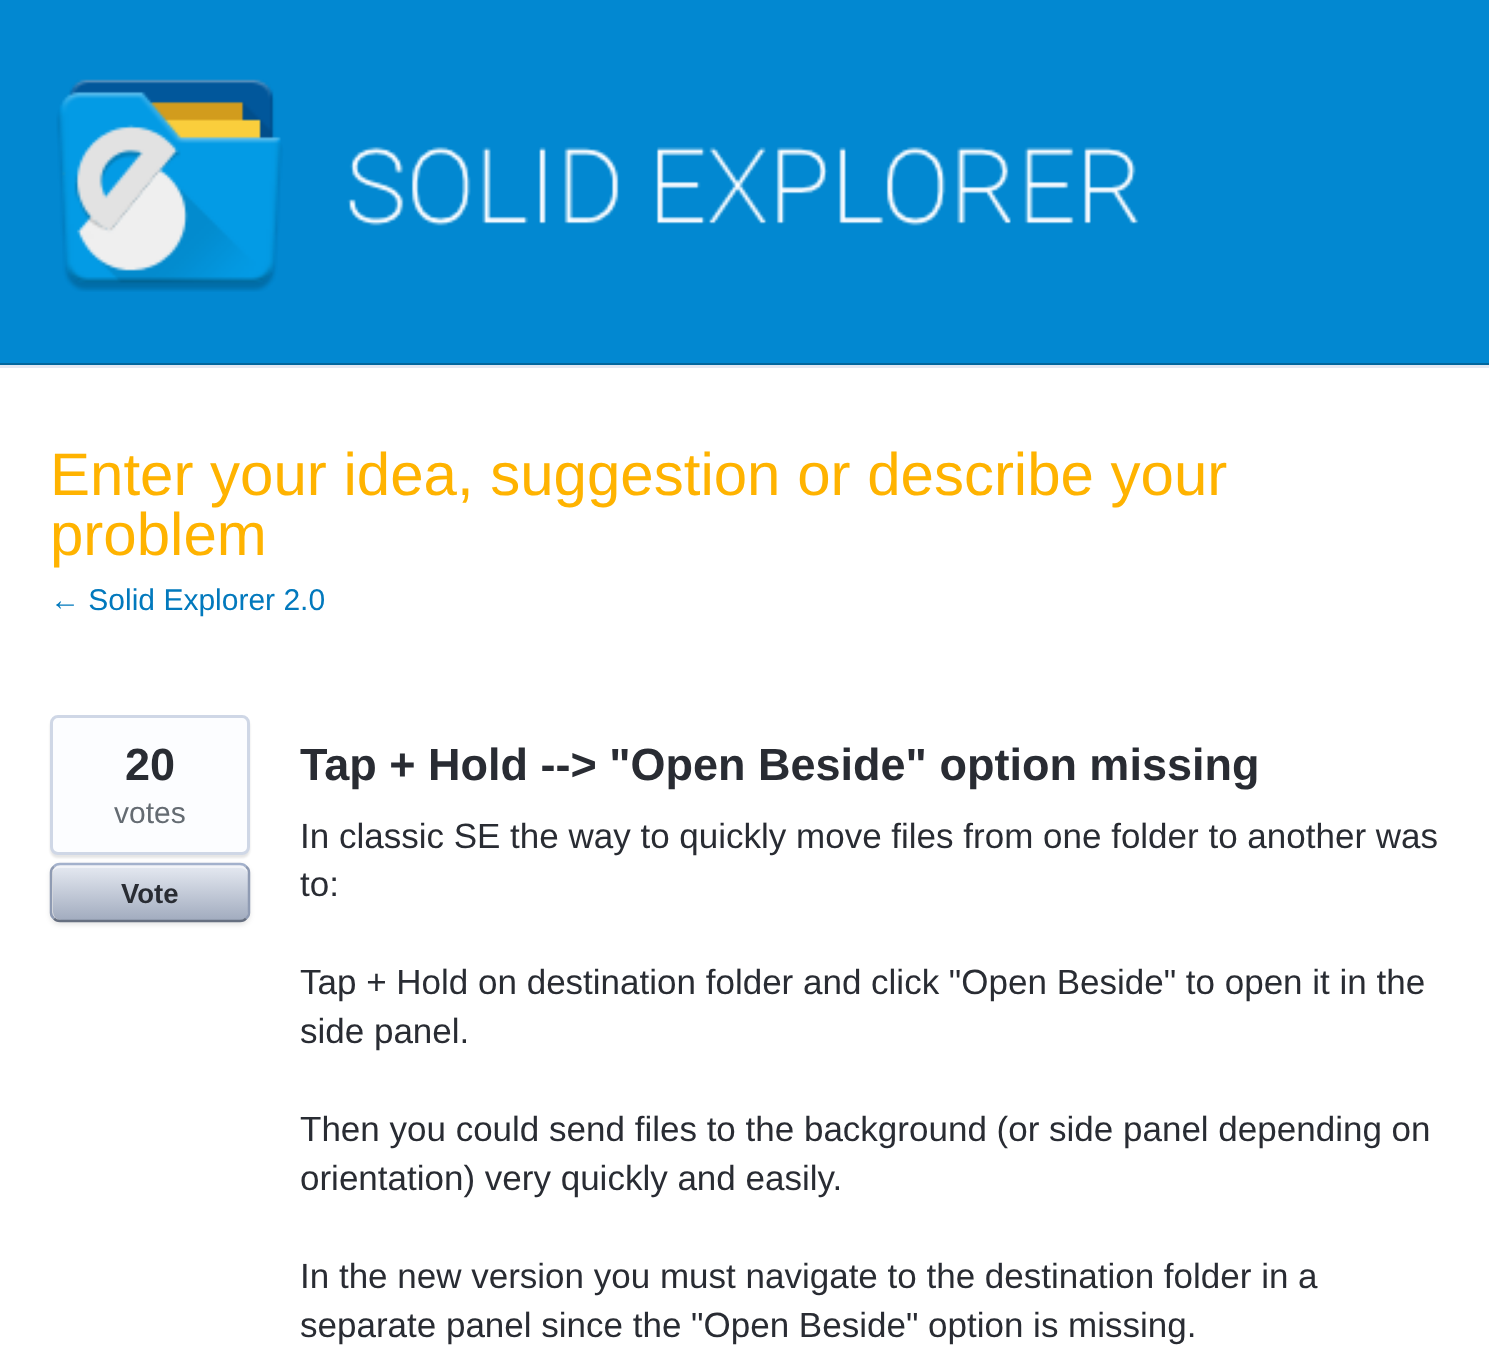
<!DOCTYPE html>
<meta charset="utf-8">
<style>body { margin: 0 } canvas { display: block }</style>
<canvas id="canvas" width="1489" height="1357"></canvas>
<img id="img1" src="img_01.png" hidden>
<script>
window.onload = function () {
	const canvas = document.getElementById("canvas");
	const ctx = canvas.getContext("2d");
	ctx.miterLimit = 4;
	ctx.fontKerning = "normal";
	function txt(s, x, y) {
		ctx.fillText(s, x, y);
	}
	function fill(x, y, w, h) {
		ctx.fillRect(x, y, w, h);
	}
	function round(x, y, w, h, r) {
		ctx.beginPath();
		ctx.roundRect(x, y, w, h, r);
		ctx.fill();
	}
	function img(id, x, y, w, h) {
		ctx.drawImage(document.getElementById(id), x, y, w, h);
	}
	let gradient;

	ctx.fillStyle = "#0288D1";
	fill(0, 0, 1489, 1357);
	ctx.fillStyle = "#02669D";
	fill(0, 363, 1489, 2);
	img("img1", 56, 79, 1083, 213);
	ctx.fillStyle = "#FFFFFF";
	fill(0, 368, 1489, 989);
	ctx.fillStyle = "#E3E8F2";
	fill(0, 365, 1489, 3);
	ctx.fillStyle = "rgba(0, 0, 0, 0.1)";
	ctx.filter = "blur(1px)";
	ctx.beginPath();
	ctx.roundRect(50, 718, 200, 140, 8);
	ctx.fill();
	ctx.filter = "none";
	ctx.fillStyle = "#FCFDFF";
	ctx.beginPath();
	ctx.roundRect(51.5, 716.5, 197, 137, 6.5);
	ctx.fill();
	ctx.strokeStyle = "#CFD7E6";
	ctx.lineWidth = 3;
	ctx.stroke();
	ctx.fillStyle = "rgba(0, 0, 0, 0.1)";
	ctx.filter = "blur(2.5px)";
	ctx.beginPath();
	ctx.roundRect(50, 865, 200, 60, 10);
	ctx.fill();
	ctx.filter = "none";
	gradient = ctx.createLinearGradient(53, 865, 53, 920);
	gradient.addColorStop(0, "#E6EAF2");
	gradient.addColorStop(1, "#A2ACBF");
	ctx.fillStyle = gradient;
	round(53, 865, 195, 55, 8);
	ctx.fillStyle = "rgba(255, 255, 255, 0.5)";
	ctx.beginPath();
	ctx.moveTo(60, 868);
	ctx.lineTo(240, 868);
	ctx.bezierCurveTo(244, 868, 248, 871, 248, 875);
	ctx.lineTo(248, 873);
	ctx.bezierCurveTo(248, 869, 244, 865, 240, 865);
	ctx.lineTo(61, 865);
	ctx.bezierCurveTo(57, 865, 54, 868, 53, 871);
	ctx.bezierCurveTo(55, 869, 57, 868, 60, 868);
	ctx.closePath();
	ctx.fill();
	ctx.beginPath();
	ctx.moveTo(54, 866.5);
	ctx.bezierCurveTo(55.5, 864.5, 57.5, 864, 60, 864);
	ctx.lineTo(240, 864);
	ctx.bezierCurveTo(242.5, 864, 244.5, 864.5, 246, 866.5);
	ctx.strokeStyle = "#A3B1CC";
	ctx.lineWidth = 2.5;
	ctx.stroke();
	ctx.beginPath();
	ctx.moveTo(246, 866.5);
	ctx.bezierCurveTo(248, 868, 249, 870, 249, 872.5);
	ctx.lineTo(249, 912.5);
	ctx.bezierCurveTo(249, 915, 248, 917, 246, 918.5);
	ctx.strokeStyle = "#8F9BB3";
	ctx.stroke();
	ctx.beginPath();
	ctx.moveTo(246, 918.5);
	ctx.bezierCurveTo(244.5, 920.5, 242.5, 921, 240, 921);
	ctx.lineTo(60, 921);
	ctx.bezierCurveTo(57.5, 921, 55.5, 920.5, 54, 918.5);
	ctx.strokeStyle = "#666F80";
	ctx.stroke();
	ctx.beginPath();
	ctx.moveTo(54, 918.5);
	ctx.bezierCurveTo(52, 917, 51, 915, 51, 912.5);
	ctx.lineTo(51, 872.5);
	ctx.bezierCurveTo(51, 870, 52, 868, 54, 866.5);
	ctx.strokeStyle = "#8F9BB3";
	ctx.stroke();
	ctx.font = "60px Liberation Sans";
	ctx.fillStyle = "#FFB300";
	txt("Enter your idea, suggestion or describe your", 50, 495);
	txt("problem", 50, 555);
	ctx.font = "30px Liberation Sans";
	ctx.fillStyle = "#0279BD";
	txt("← Solid Explorer 2.0", 50, 610);
	ctx.font = "bold 45px Liberation Sans";
	ctx.fillStyle = "#292C33";
	txt("20", 125, 780);
	ctx.font = "30px Liberation Sans";
	ctx.fillStyle = "#646B72";
	txt("votes", 114, 823);
	ctx.font = "bold 27.5px Liberation Sans";
	ctx.fillStyle = "#292C33";
	txt("Vote", 121, 903);
	ctx.font = "bold 45px Liberation Sans";
	txt("Tap + Hold --> \"Open Beside\" option missing", 300, 780);
	ctx.font = "35px Liberation Sans";
	txt("In classic SE the way to quickly move files from one folder to another was", 300, 848);
	txt("to:", 300, 896);
	txt("Tap + Hold on destination folder and click \"Open Beside\" to open it in the", 300, 994);
	txt("side panel.", 300, 1043);
	txt("Then you could send files to the background (or side panel depending on", 300, 1141);
	txt("orientation) very quickly and easily.", 300, 1190);
	txt("In the new version you must navigate to the destination folder in a", 300, 1288);
	txt("separate panel since the \"Open Beside\" option is missing.", 300, 1337);
};
</script>
